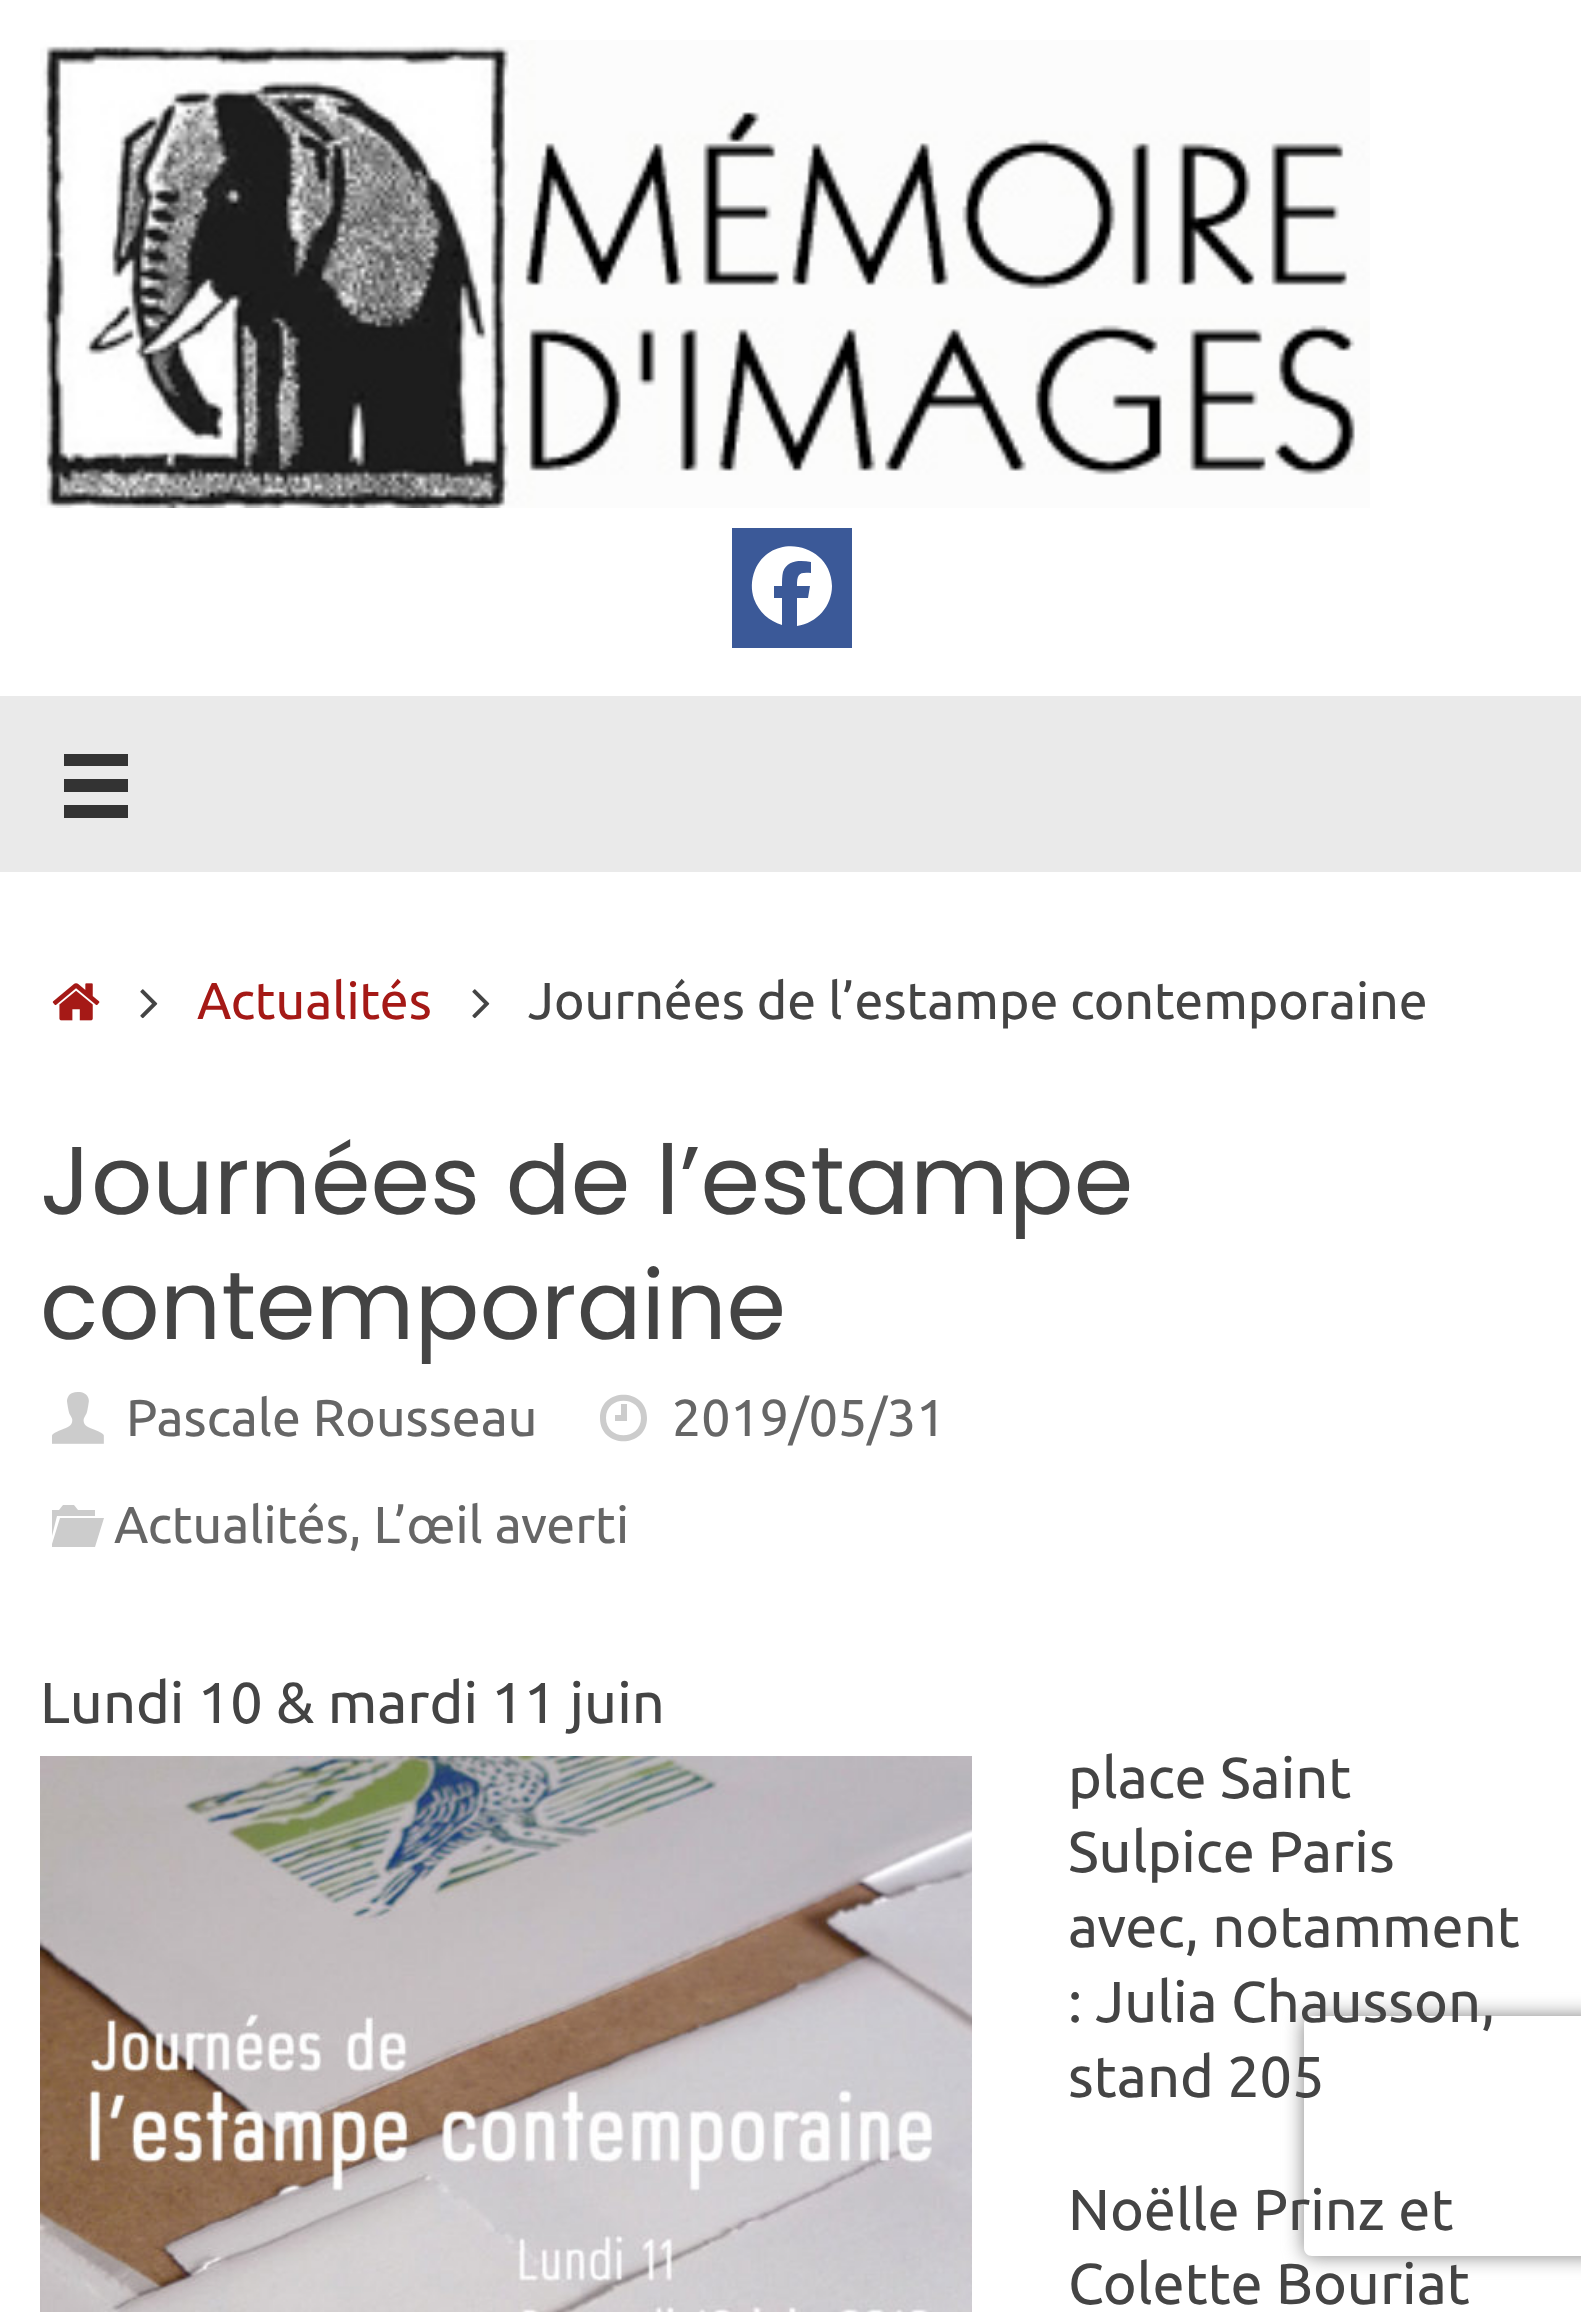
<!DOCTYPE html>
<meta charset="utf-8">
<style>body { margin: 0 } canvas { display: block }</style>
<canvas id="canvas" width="1581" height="2312"></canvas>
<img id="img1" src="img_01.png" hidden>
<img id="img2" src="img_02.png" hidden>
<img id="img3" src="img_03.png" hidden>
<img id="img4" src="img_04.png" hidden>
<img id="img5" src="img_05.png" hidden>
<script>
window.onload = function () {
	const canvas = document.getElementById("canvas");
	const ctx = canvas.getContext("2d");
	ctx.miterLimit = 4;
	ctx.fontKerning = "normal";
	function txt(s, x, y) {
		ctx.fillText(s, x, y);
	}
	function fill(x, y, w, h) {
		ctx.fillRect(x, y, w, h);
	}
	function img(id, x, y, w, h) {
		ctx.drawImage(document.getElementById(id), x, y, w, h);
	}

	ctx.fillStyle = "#FFFFFF";
	fill(0, 0, 1581, 2312);
	img("img1", 40, 40, 1330, 468);
	ctx.fillStyle = "#3B5998";
	fill(732, 528, 120, 120);
	ctx.fillStyle = "#FFFFFF";
	ctx.beginPath();
	ctx.moveTo(832, 586);
	ctx.bezierCurveTo(831, 543, 772, 531, 755, 570);
	ctx.bezierCurveTo(751, 580, 751, 590, 754, 599);
	ctx.bezierCurveTo(759, 612, 769, 621, 782, 625);
	ctx.lineTo(782, 598);
	ctx.lineTo(774, 598);
	ctx.lineTo(774, 586);
	ctx.lineTo(782, 586);
	ctx.bezierCurveTo(782, 581, 782, 576, 783, 572);
	ctx.bezierCurveTo(787, 560, 800, 560, 811, 562);
	ctx.lineTo(811, 573);
	ctx.bezierCurveTo(799, 572, 797, 574, 797, 586);
	ctx.lineTo(810, 586);
	ctx.lineTo(808, 598);
	ctx.lineTo(797, 598);
	ctx.lineTo(797, 626);
	ctx.bezierCurveTo(817, 623, 832, 606, 832, 586);
	ctx.closePath();
	ctx.fill();
	ctx.fillStyle = "#EAEAEA";
	fill(0, 696, 1581, 176);
	ctx.fillStyle = "#333333";
	ctx.beginPath();
	ctx.moveTo(64, 754);
	ctx.lineTo(64, 766);
	ctx.lineTo(128, 766);
	ctx.lineTo(128, 754);
	ctx.closePath();
	ctx.moveTo(64, 779);
	ctx.lineTo(64, 792);
	ctx.lineTo(128, 792);
	ctx.lineTo(128, 779);
	ctx.closePath();
	ctx.moveTo(64, 805);
	ctx.lineTo(64, 818);
	ctx.lineTo(128, 818);
	ctx.lineTo(128, 805);
	ctx.closePath();
	ctx.fill();
	img("img2", 52, 983, 48, 38);
	img("img3", 140, 989, 18, 30);
	img("img3", 472, 989, 18, 30);
	img("img4", 52, 1392, 52, 52);
	ctx.fillStyle = "#CCCCCC";
	ctx.beginPath();
	ctx.moveTo(600, 1418);
	ctx.bezierCurveTo(600, 1387, 647, 1387, 647, 1418);
	ctx.bezierCurveTo(647, 1449, 600, 1449, 600, 1418);
	ctx.closePath();
	ctx.moveTo(606, 1418);
	ctx.bezierCurveTo(606, 1441, 641, 1441, 641, 1418);
	ctx.bezierCurveTo(641, 1395, 606, 1395, 606, 1418);
	ctx.closePath();
	ctx.moveTo(615, 1421);
	ctx.lineTo(615, 1415);
	ctx.lineTo(621, 1415);
	ctx.lineTo(621, 1404);
	ctx.lineTo(627, 1404);
	ctx.lineTo(627, 1421);
	ctx.closePath();
	ctx.fill();
	ctx.beginPath();
	ctx.moveTo(52, 1547);
	ctx.lineTo(52, 1544);
	ctx.lineTo(60, 1518);
	ctx.lineTo(104, 1518);
	ctx.lineTo(95, 1547);
	ctx.closePath();
	ctx.moveTo(52, 1536);
	ctx.lineTo(52, 1510);
	ctx.lineTo(59, 1510);
	ctx.lineTo(63, 1505);
	ctx.lineTo(74, 1505);
	ctx.lineTo(78, 1510);
	ctx.lineTo(95, 1510);
	ctx.lineTo(95, 1516);
	ctx.lineTo(57, 1516);
	ctx.closePath();
	ctx.fill();
	img("img5", 40, 1756, 932, 556);
	ctx.save();
	ctx.beginPath();
	ctx.moveTo(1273, 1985);
	ctx.lineTo(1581, 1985);
	ctx.lineTo(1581, 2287);
	ctx.lineTo(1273, 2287);
	ctx.closePath();
	ctx.moveTo(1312, 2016);
	ctx.lineTo(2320, 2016);
	ctx.bezierCurveTo(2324.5, 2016, 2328, 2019.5, 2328, 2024);
	ctx.lineTo(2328, 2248);
	ctx.bezierCurveTo(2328, 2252.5, 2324.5, 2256, 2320, 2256);
	ctx.lineTo(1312, 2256);
	ctx.bezierCurveTo(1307.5, 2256, 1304, 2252.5, 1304, 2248);
	ctx.lineTo(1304, 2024);
	ctx.bezierCurveTo(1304, 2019.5, 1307.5, 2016, 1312, 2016);
	ctx.closePath();
	ctx.clip("evenodd");
	ctx.fillStyle = "#808080";
	ctx.filter = "blur(10px)";
	ctx.beginPath();
	ctx.roundRect(1304, 2016, 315, 240, 8);
	ctx.fill();
	ctx.filter = "none";
	ctx.restore();
	ctx.font = "51.8px Ubuntu";
	ctx.fillStyle = "#A51916";
	txt("Actualités", 197, 1019);
	ctx.fillStyle = "#444444";
	txt("Journées de l’estampe contemporaine", 528, 1019);
	ctx.font = "96px Poppins";
	txt("Journées de l’estampe", 40, 1214);
	txt("contemporaine", 40, 1339);
	ctx.font = "51.8px Ubuntu";
	ctx.fillStyle = "#666666";
	txt("Pascale Rousseau", 126, 1436);
	txt("2019/05/31", 672, 1436);
	txt("Actualités, L’œil averti", 114, 1543);
	ctx.font = "57.6px Ubuntu";
	ctx.fillStyle = "#444444";
	txt("Lundi 10 & mardi 11 juin", 40, 1723);
	txt("place Saint", 1068, 1798);
	txt("Sulpice Paris", 1068, 1872);
	txt("avec, notamment", 1068, 1947);
	txt(": Julia Chausson,", 1068, 2022);
	txt("stand 205", 1068, 2097);
	txt("Noëlle Prinz et", 1068, 2230);
	txt("Colette Bouriat", 1068, 2304);
};
</script>
